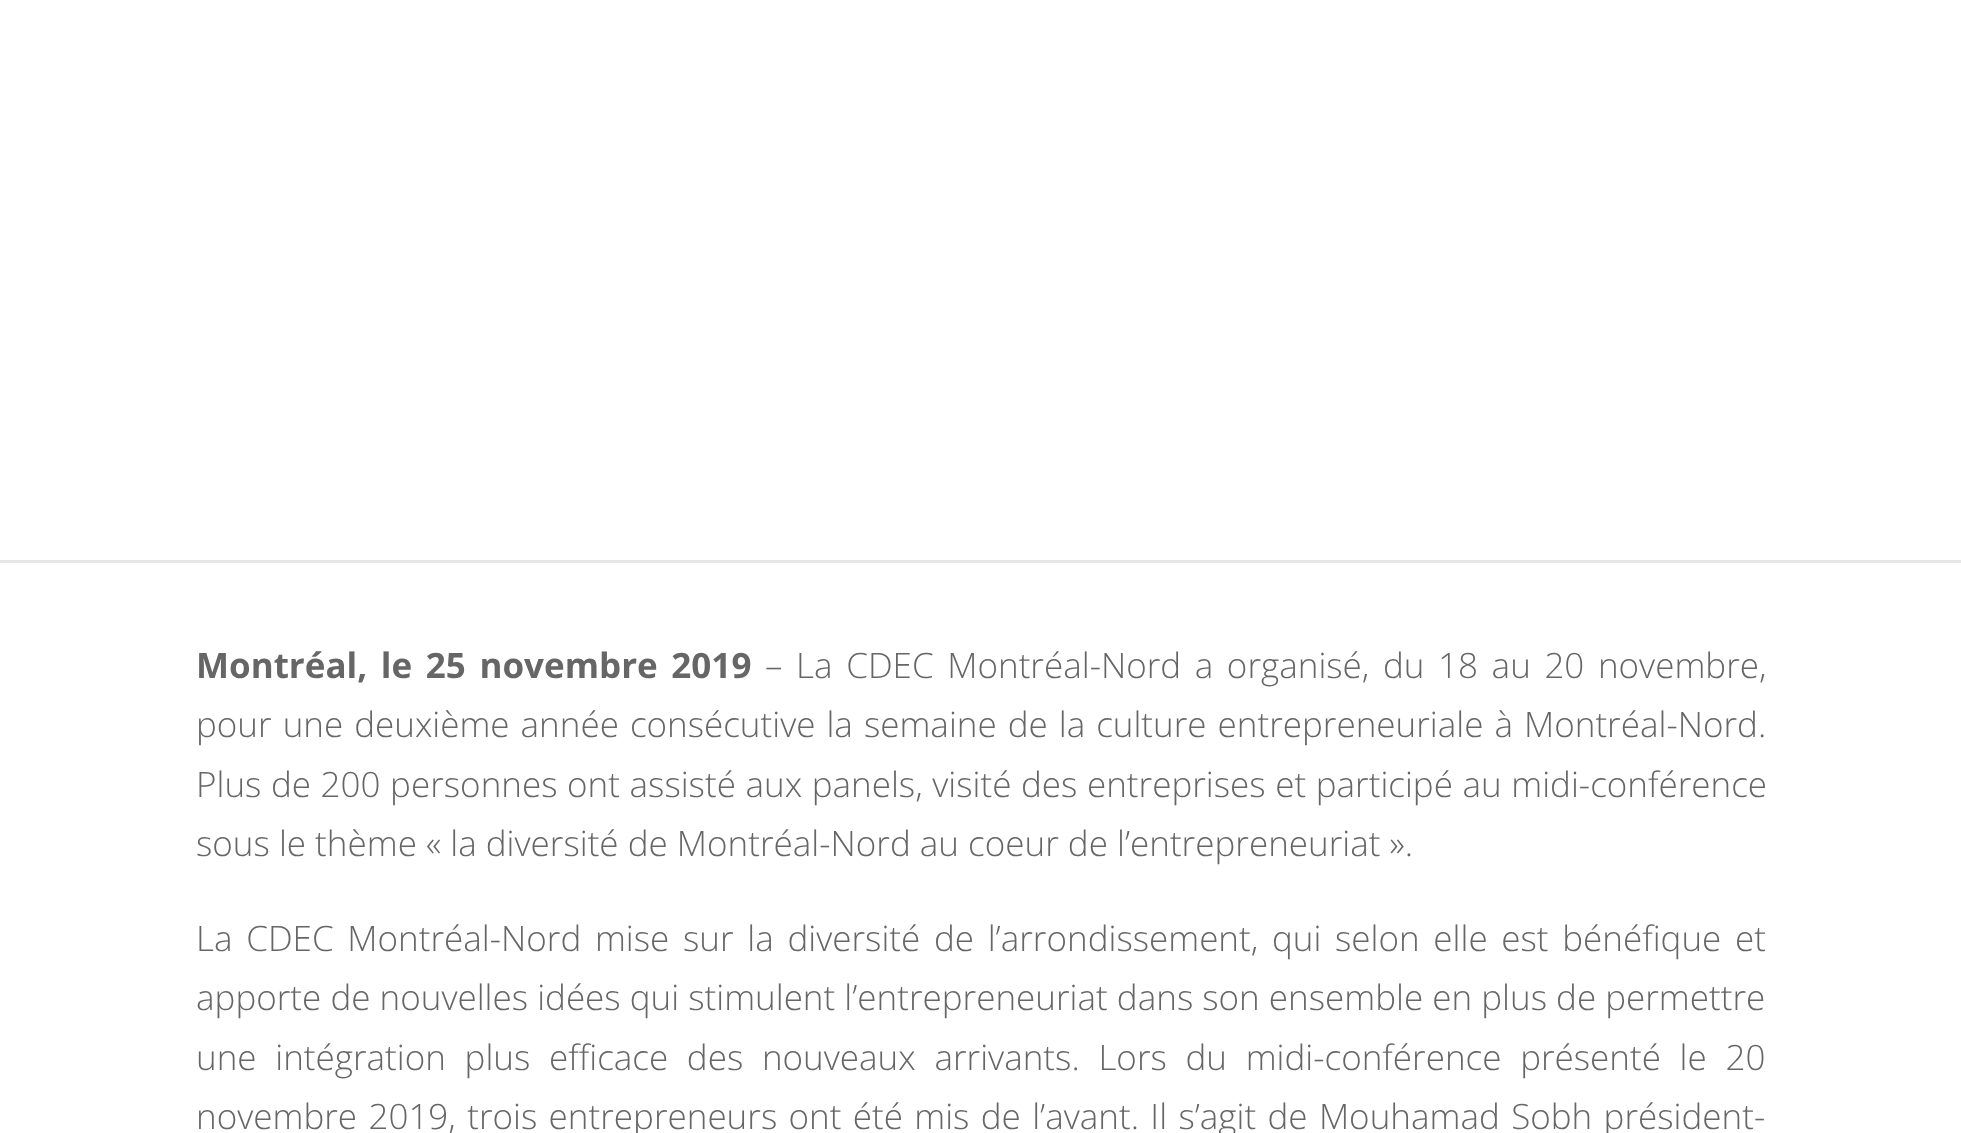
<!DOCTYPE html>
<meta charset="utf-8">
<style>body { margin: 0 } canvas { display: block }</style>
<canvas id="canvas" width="1961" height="1133"></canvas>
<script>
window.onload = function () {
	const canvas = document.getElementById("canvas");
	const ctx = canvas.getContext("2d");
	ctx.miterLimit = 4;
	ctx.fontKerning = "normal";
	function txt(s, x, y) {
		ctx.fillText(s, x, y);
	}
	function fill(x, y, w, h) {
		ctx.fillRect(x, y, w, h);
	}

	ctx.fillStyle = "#FFFFFF";
	fill(0, 0, 1961, 1133);
	ctx.fillStyle = "#E6E6E6";
	ctx.beginPath();
	ctx.moveTo(0, 560);
	ctx.lineTo(0, 563);
	ctx.lineTo(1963, 563);
	ctx.lineTo(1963, 363);
	ctx.lineTo(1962, 363);
	ctx.lineTo(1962, 560);
	ctx.closePath();
	ctx.fill();
	ctx.wordSpacing = "4.5px";
	ctx.font = "bold 35px Open Sans";
	ctx.fillStyle = "#666666";
	txt("Montréal, le 25 novembre 2019", 196, 678);
	ctx.font = "300 35px Open Sans";
	txt("– La CDEC Montréal-Nord a organisé, du 18 au 20 novembre,", 765, 678);
	ctx.wordSpacing = "1.9px";
	txt("pour une deuxième année consécutive la semaine de la culture entrepreneuriale à Montréal-Nord.", 196, 737);
	ctx.wordSpacing = "0.5px";
	txt("Plus de 200 personnes ont assisté aux panels, visité des entreprises et participé au midi-conférence", 196, 797);
	ctx.wordSpacing = "0px";
	txt("sous le thème « la diversité de Montréal-Nord au coeur de l’entrepreneuriat ».", 196, 856);
	ctx.wordSpacing = "4.6px";
	txt("La CDEC Montréal-Nord mise sur la diversité de l’arrondissement, qui selon elle est bénéfique et", 196, 951);
	ctx.wordSpacing = "0px";
	txt("apporte de nouvelles idées qui stimulent l’entrepreneuriat dans son ensemble en plus de permettre", 196, 1010);
	ctx.wordSpacing = "9.6px";
	txt("une intégration plus efficace des nouveaux arrivants. Lors du midi-conférence présenté le 20", 196, 1070);
	ctx.wordSpacing = "2.25px";
	txt("novembre 2019, trois entrepreneurs ont été mis de l’avant. Il s’agit de Mouhamad Sobh président-", 196, 1129);
};
</script>
